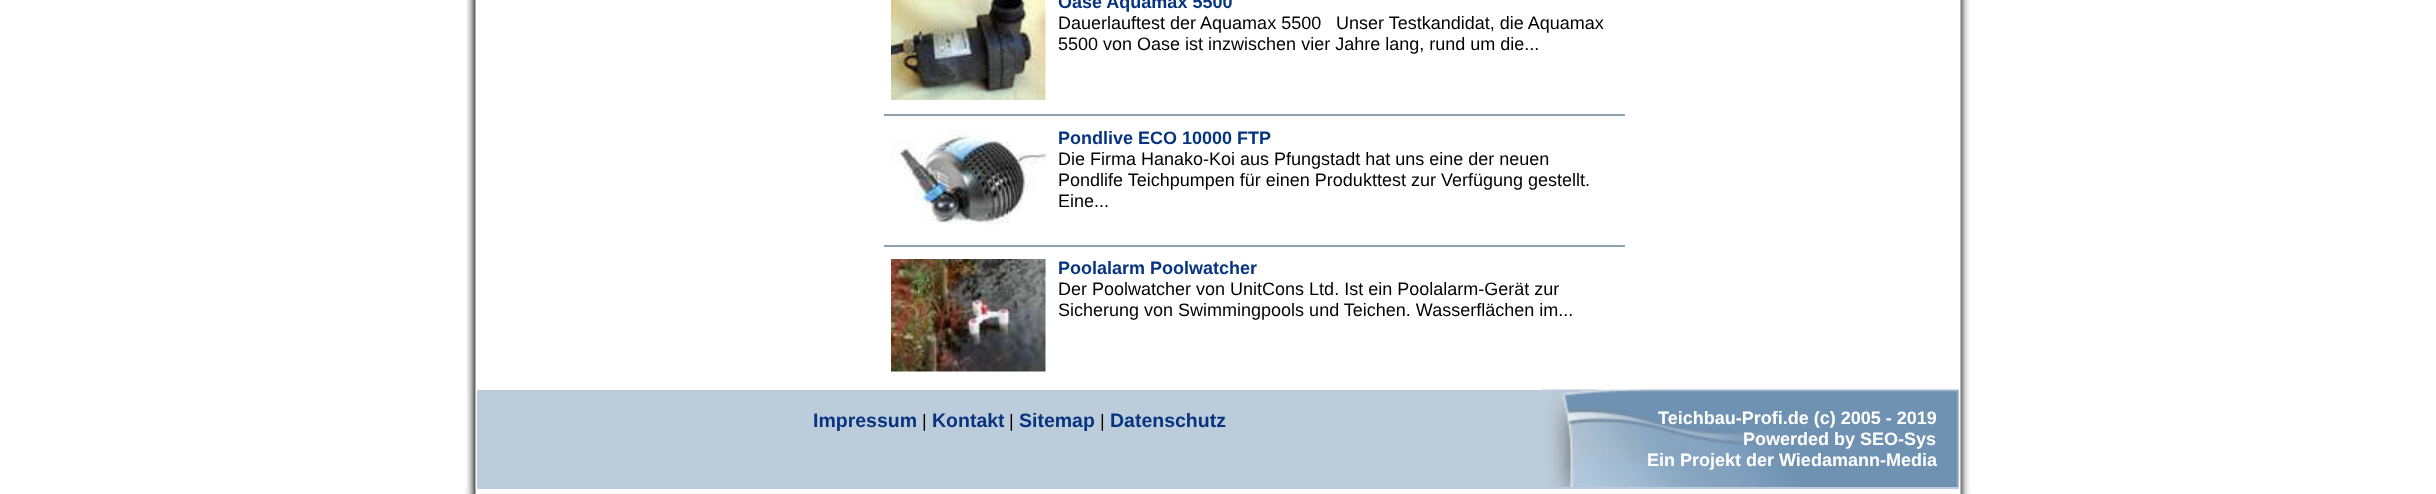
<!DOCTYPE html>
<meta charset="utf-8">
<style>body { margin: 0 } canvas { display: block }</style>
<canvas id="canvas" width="2436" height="494"></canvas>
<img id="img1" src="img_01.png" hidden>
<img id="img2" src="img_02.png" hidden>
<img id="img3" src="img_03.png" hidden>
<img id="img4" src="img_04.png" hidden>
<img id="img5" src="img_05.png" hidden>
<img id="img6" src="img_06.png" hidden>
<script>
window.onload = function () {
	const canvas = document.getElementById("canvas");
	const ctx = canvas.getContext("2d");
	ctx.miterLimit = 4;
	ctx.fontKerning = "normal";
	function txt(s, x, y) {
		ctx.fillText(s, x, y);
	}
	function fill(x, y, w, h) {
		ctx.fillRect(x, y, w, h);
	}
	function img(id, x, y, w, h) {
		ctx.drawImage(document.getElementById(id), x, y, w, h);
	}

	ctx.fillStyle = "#FFFFFF";
	fill(0, 0, 2436, 494);
	img("img1", 464, 488, 1507, 6);
	img("img2", 464, 0, 1507, 489);
	img("img3", 891, 0, 155, 100);
	ctx.fillStyle = "#8EA1AF";
	fill(884, 114, 741, 2);
	img("img4", 891, 128, 155, 97);
	fill(884, 245, 741, 2);
	img("img5", 891, 259, 155, 113);
	ctx.fillStyle = "#BCCCDB";
	fill(477, 390, 1482, 99);
	img("img6", 1542, 389, 417, 98);
	ctx.font = "bold 18px Liberation Sans";
	ctx.fillStyle = "#07347F";
	txt("Oase Aquamax 5500", 1058, 8);
	ctx.font = "18px Liberation Sans";
	ctx.fillStyle = "#000000";
	txt("Dauerlauftest der Aquamax 5500", 1058, 29);
	txt("Unser Testkandidat, die Aquamax", 1336, 29);
	txt("5500 von Oase ist inzwischen vier Jahre lang, rund um die...", 1058, 50);
	ctx.font = "bold 18px Liberation Sans";
	ctx.fillStyle = "#07347F";
	txt("Pondlive ECO 10000 FTP", 1058, 144);
	ctx.font = "18px Liberation Sans";
	ctx.fillStyle = "#000000";
	txt("Die Firma Hanako-Koi aus Pfungstadt hat uns eine der neuen", 1058, 165);
	txt("Pondlife Teichpumpen für einen Produkttest zur Verfügung gestellt.", 1058, 186);
	txt("Eine...", 1058, 207);
	ctx.font = "bold 18px Liberation Sans";
	ctx.fillStyle = "#07347F";
	txt("Poolalarm Poolwatcher", 1058, 274);
	ctx.font = "18px Liberation Sans";
	ctx.fillStyle = "#000000";
	txt("Der Poolwatcher von UnitCons Ltd. Ist ein Poolalarm-Gerät zur", 1058, 295);
	txt("Sicherung von Swimmingpools und Teichen. Wasserflächen im...", 1058, 316);
	ctx.font = "bold 19.5px Liberation Sans";
	ctx.fillStyle = "#07347F";
	txt("Impressum", 813, 427);
	ctx.font = "18px Liberation Sans";
	ctx.fillStyle = "#000000";
	txt("|", 922, 427);
	ctx.font = "bold 19.5px Liberation Sans";
	ctx.fillStyle = "#07347F";
	txt("Kontakt", 932, 427);
	ctx.font = "18px Liberation Sans";
	ctx.fillStyle = "#000000";
	txt("|", 1009, 427);
	ctx.font = "bold 19.5px Liberation Sans";
	ctx.fillStyle = "#07347F";
	txt("Sitemap", 1019, 427);
	ctx.font = "18px Liberation Sans";
	ctx.fillStyle = "#000000";
	txt("|", 1100, 427);
	ctx.font = "bold 19.5px Liberation Sans";
	ctx.fillStyle = "#07347F";
	txt("Datenschutz", 1110, 427);
	ctx.font = "bold 18px Liberation Sans";
	ctx.fillStyle = "#FFFFFF";
	txt("Teichbau-Profi.de (c) 2005 - 2019", 1658, 424);
	txt("Powerded by SEO-Sys", 1743, 445);
	txt("Ein Projekt der Wiedamann-Media", 1647, 466);
};
</script>
